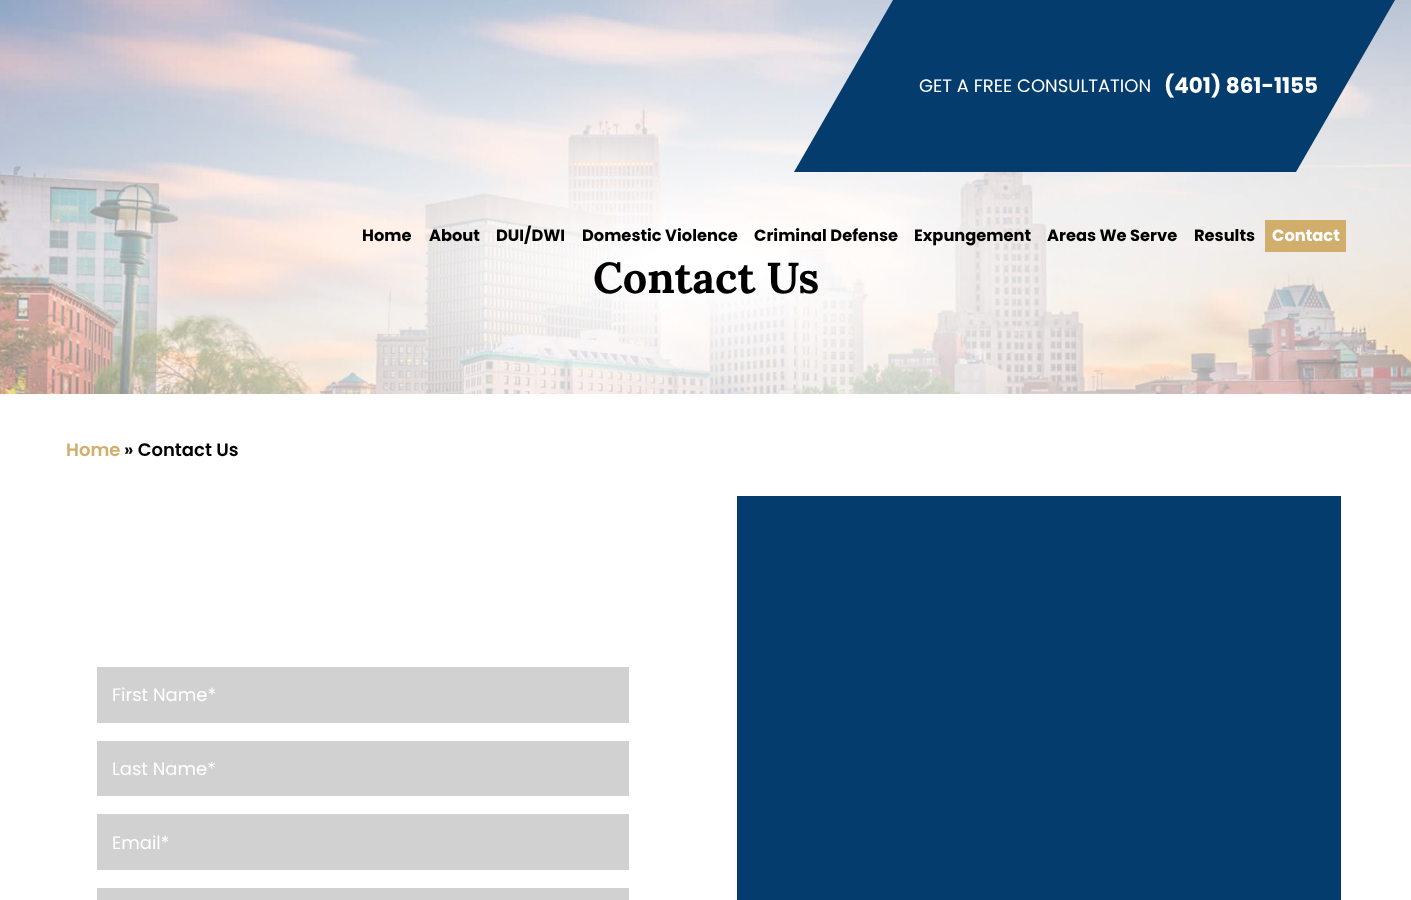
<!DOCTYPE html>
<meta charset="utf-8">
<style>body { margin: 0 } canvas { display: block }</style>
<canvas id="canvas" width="1411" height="900"></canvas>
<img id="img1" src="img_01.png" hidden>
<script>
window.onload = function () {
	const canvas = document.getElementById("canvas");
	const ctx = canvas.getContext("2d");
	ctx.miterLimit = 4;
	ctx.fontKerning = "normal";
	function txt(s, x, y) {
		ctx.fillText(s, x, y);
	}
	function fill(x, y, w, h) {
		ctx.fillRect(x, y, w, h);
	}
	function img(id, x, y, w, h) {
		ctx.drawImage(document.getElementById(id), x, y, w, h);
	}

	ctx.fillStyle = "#FFFFFF";
	fill(0, 0, 1411, 900);
	img("img1", 0, 0, 1411, 394);
	ctx.fillStyle = "#043D6D";
	ctx.beginPath();
	ctx.moveTo(893, 0);
	ctx.lineTo(1395, 0);
	ctx.lineTo(1296, 172);
	ctx.lineTo(794, 172);
	ctx.closePath();
	ctx.fill();
	ctx.fillStyle = "#D1AE6C";
	fill(1265, 220, 81, 32);
	ctx.fillStyle = "#D1D1D1";
	fill(97, 667, 532, 56);
	fill(97, 741, 532, 55);
	fill(97, 814, 532, 56);
	fill(97, 888, 532, 12);
	ctx.fillStyle = "#043D6D";
	fill(737, 496, 604, 404);
	ctx.font = "18px Poppins";
	ctx.fillStyle = "#FFFFFF";
	txt("GET A FREE CONSULTATION", 919, 92);
	ctx.font = "bold 21.5px Poppins";
	txt("(401) 861-1155", 1164, 93);
	ctx.font = "bold 16.25px Poppins";
	ctx.fillStyle = "#000000";
	txt("Home", 362, 241);
	txt("About", 429, 241);
	txt("DUI/DWI", 496, 241);
	txt("Domestic Violence", 582, 241);
	txt("Criminal Defense", 754, 241);
	txt("Expungement", 914, 241);
	txt("Areas We Serve", 1047, 241);
	txt("Results", 1194, 241);
	ctx.fillStyle = "#FFFFFF";
	txt("Contact", 1272, 241);
	ctx.font = "bold 43.25px Lora";
	ctx.fillStyle = "#000000";
	txt("Contact Us", 593, 293);
	ctx.font = "600 18px Poppins";
	ctx.fillStyle = "#D1AE6C";
	txt("Home", 66, 456);
	ctx.fillStyle = "#000000";
	txt("» Contact Us", 124, 456);
	ctx.font = "18px Poppins";
	ctx.fillStyle = "#FFFFFF";
	txt("First Name*", 112, 701);
	txt("Last Name*", 112, 775);
	txt("Email*", 112, 849);
};
</script>
